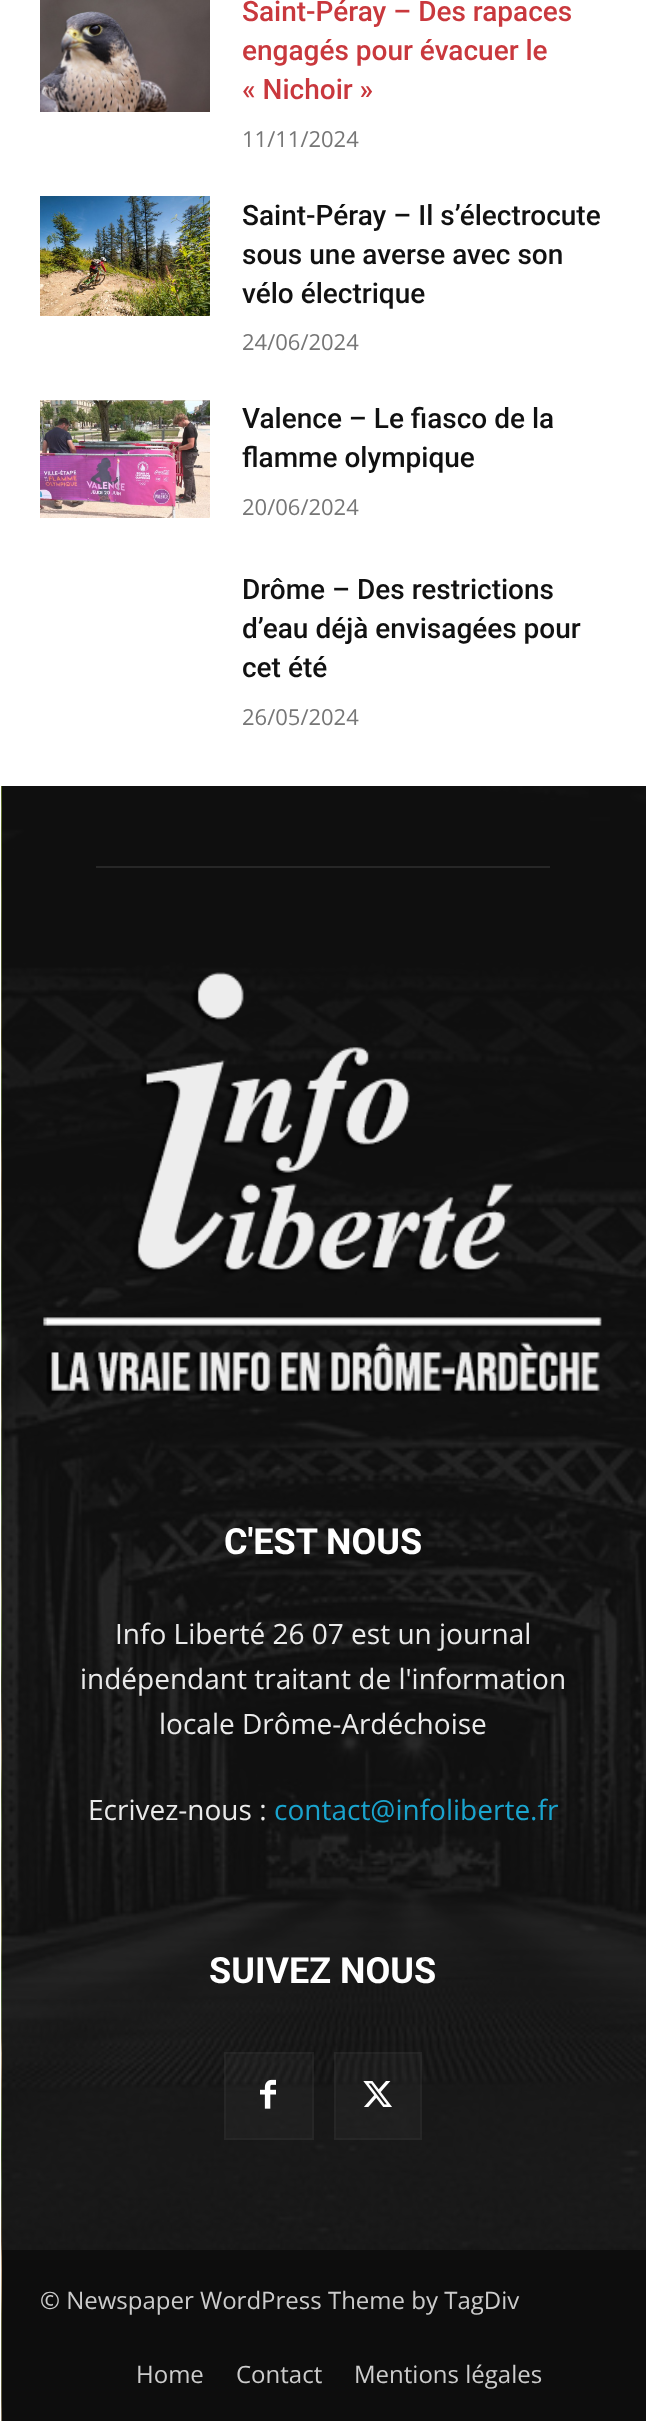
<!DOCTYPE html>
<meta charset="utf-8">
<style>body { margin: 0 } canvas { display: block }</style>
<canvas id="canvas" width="646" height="2421"></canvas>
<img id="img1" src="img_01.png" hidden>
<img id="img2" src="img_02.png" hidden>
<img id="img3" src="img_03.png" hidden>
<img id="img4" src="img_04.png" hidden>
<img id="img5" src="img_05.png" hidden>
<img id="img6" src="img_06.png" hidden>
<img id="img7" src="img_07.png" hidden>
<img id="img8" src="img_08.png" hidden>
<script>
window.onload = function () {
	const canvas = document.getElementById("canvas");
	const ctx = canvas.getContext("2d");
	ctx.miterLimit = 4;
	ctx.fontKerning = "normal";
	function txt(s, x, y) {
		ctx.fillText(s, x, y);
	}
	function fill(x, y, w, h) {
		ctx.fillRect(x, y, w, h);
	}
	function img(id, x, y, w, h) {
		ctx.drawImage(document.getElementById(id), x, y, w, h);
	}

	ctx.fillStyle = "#FFFFFF";
	fill(0, 0, 646, 2421);
	img("img1", 40, 0, 170, 112);
	img("img2", 40, 196, 170, 120);
	img("img3", 40, 400, 170, 118);
	img("img4", 1, 786, 1, 1635);
	ctx.fillStyle = "#111111";
	fill(2, 786, 644, 1464);
	img("img5", 1, 786, 645, 1464);
	ctx.fillStyle = "#272727";
	fill(96, 866, 454, 2);
	img("img6", 43, 972, 559, 423);
	ctx.fillStyle = "rgba(255, 255, 255, 0.03)";
	fill(224, 2052, 90, 88);
	ctx.strokeStyle = "rgba(255, 255, 255, 0.03)";
	ctx.lineWidth = 2;
	ctx.strokeRect(225, 2053, 88, 86);
	img("img7", 260, 2079, 16, 30);
	fill(334, 2052, 88, 88);
	ctx.strokeRect(335, 2053, 86, 86);
	img("img8", 363, 2081, 29, 26);
	ctx.fillStyle = "#0D0D0D";
	fill(2, 2250, 644, 171);
	ctx.font = "500 28px Roboto";
	ctx.fillStyle = "#C9383D";
	txt("Saint-Péray – Des rapaces", 242, 21);
	txt("engagés pour évacuer le", 242, 60);
	txt("« Nichoir »", 242, 99);
	ctx.font = "22px Open Sans";
	ctx.fillStyle = "#767676";
	txt("11/11/2024", 242, 147);
	ctx.font = "500 28px Roboto";
	ctx.fillStyle = "#111111";
	txt("Saint-Péray – Il s’électrocute", 242, 225);
	txt("sous une averse avec son", 242, 264);
	txt("vélo électrique", 242, 303);
	ctx.font = "22px Open Sans";
	ctx.fillStyle = "#767676";
	txt("24/06/2024", 242, 350);
	ctx.font = "500 28px Roboto";
	ctx.fillStyle = "#111111";
	txt("Valence – Le fiasco de la", 242, 428);
	txt("flamme olympique", 242, 467);
	ctx.font = "22px Open Sans";
	ctx.fillStyle = "#767676";
	txt("20/06/2024", 242, 515);
	ctx.font = "500 28px Roboto";
	ctx.fillStyle = "#111111";
	txt("Drôme – Des restrictions", 242, 599);
	txt("d’eau déjà envisagées pour", 242, 638);
	txt("cet été", 242, 677);
	ctx.font = "22px Open Sans";
	ctx.fillStyle = "#767676";
	txt("26/05/2024", 242, 725);
	ctx.font = "bold 36px Roboto";
	ctx.fillStyle = "#FFFFFF";
	txt("C'EST NOUS", 224, 1554);
	ctx.font = "28px Open Sans";
	ctx.fillStyle = "#EAEAEA";
	txt("Info Liberté 26 07 est un journal", 115, 1644);
	txt("indépendant traitant de l'information", 80, 1689);
	txt("locale Drôme-Ardéchoise", 159, 1734);
	txt("Ecrivez-nous :", 88, 1820);
	ctx.fillStyle = "#1AA4CE";
	txt("contact@infoliberte.fr", 274, 1820);
	ctx.font = "bold 36px Roboto";
	ctx.fillStyle = "#FFFFFF";
	txt("SUIVEZ NOUS", 209, 1983);
	ctx.font = "24px Open Sans";
	ctx.fillStyle = "#CCCCCC";
	txt("© Newspaper WordPress Theme by TagDiv", 40, 2309);
	txt("Home", 136, 2383);
	txt("Contact", 236, 2383);
	txt("Mentions légales", 354, 2383);
};
</script>
